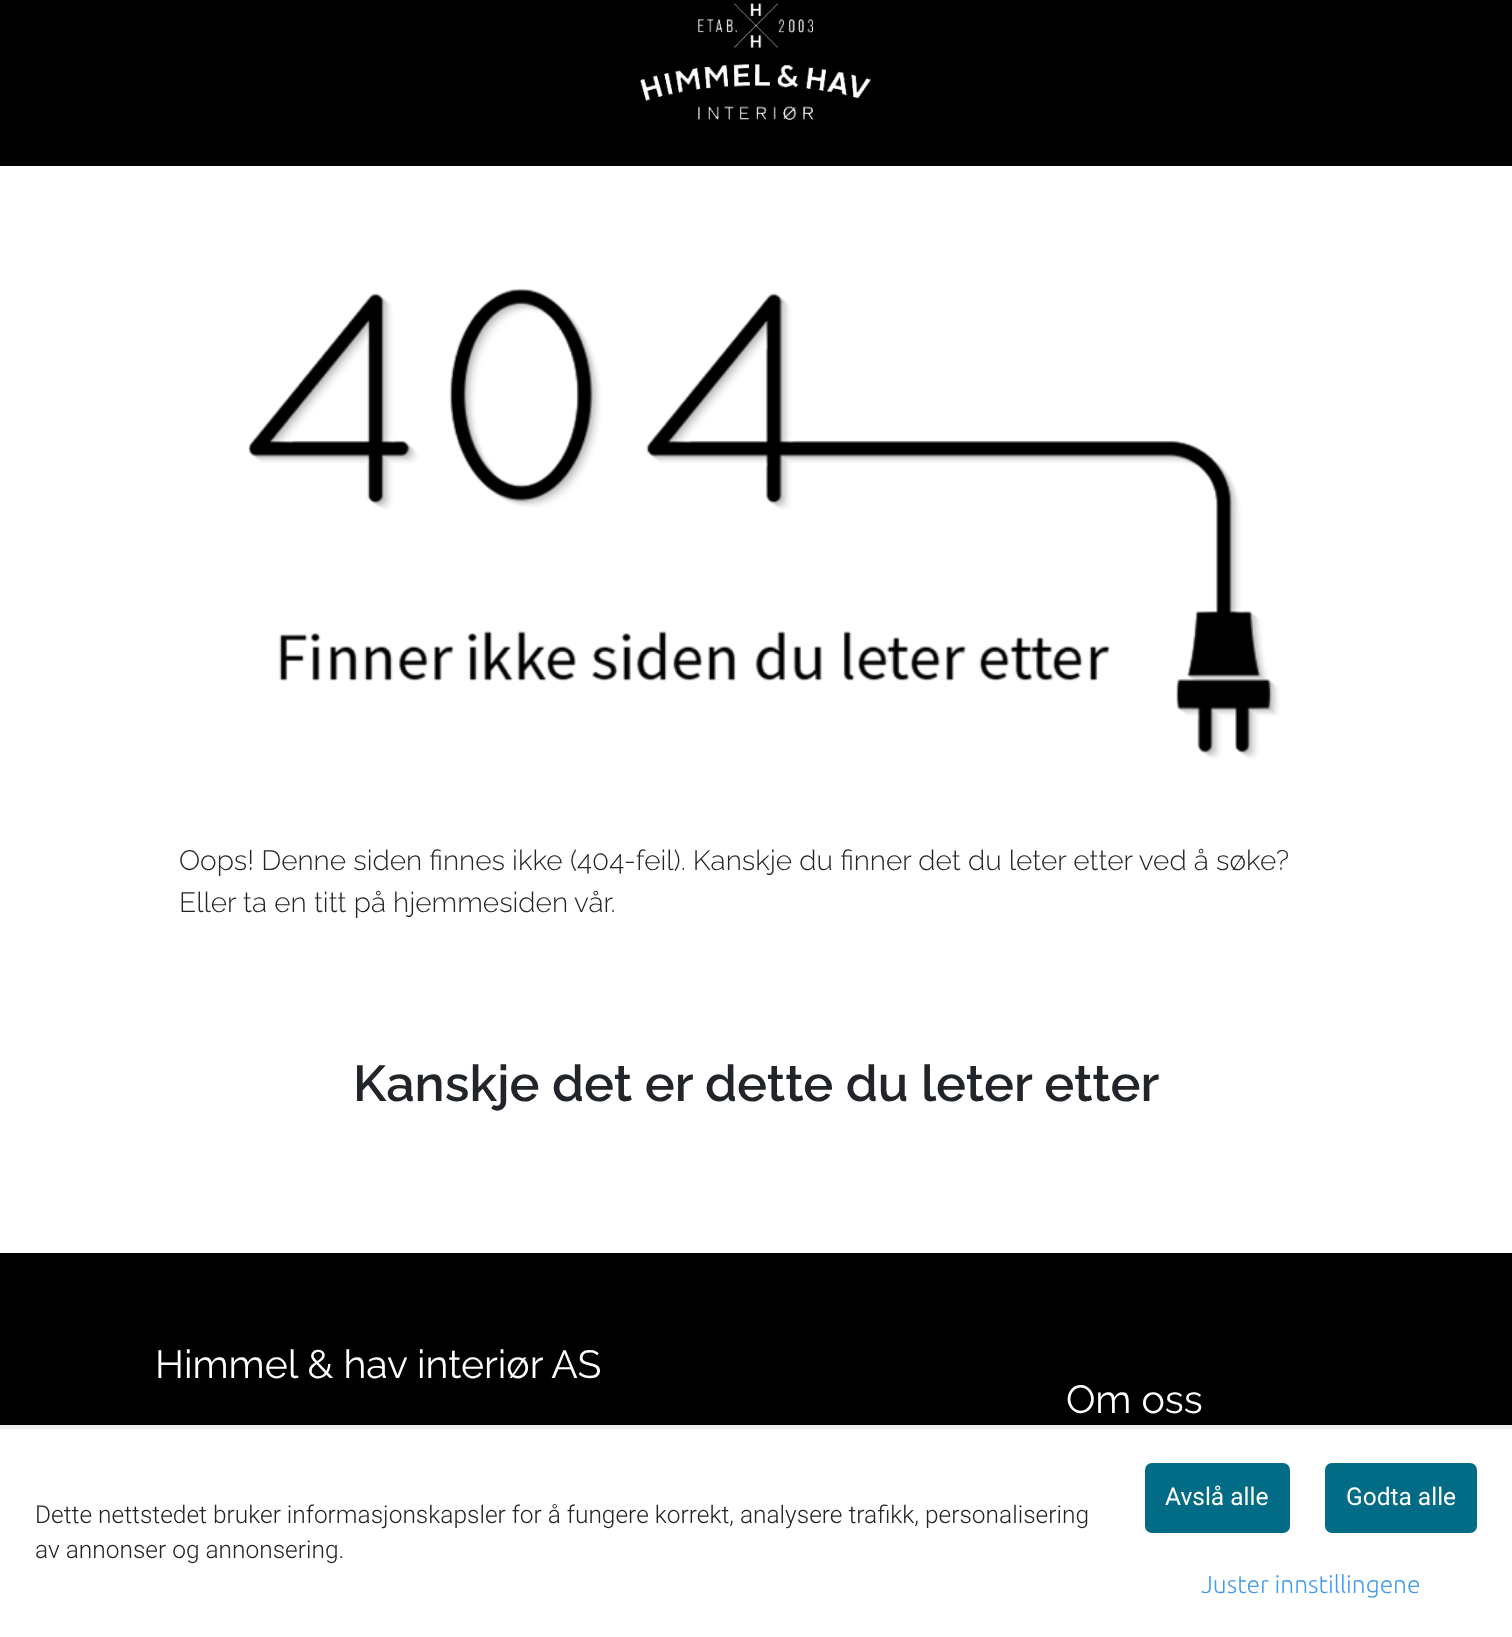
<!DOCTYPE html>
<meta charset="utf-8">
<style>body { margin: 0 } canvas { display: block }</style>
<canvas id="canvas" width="1512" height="1637"></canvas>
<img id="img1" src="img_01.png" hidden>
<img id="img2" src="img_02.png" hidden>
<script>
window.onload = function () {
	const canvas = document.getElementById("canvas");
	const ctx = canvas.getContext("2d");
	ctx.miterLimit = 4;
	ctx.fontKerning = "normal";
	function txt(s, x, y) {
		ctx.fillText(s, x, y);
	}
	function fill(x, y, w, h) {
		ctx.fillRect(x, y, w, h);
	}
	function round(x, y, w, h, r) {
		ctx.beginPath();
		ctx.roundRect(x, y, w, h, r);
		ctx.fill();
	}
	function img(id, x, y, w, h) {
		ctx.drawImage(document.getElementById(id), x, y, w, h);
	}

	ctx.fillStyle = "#FFFFFF";
	fill(0, 0, 1512, 1637);
	ctx.fillStyle = "#000000";
	fill(0, 0, 1512, 166);
	img("img1", 640, 3, 231, 117);
	img("img2", 247, 288, 1033, 471);
	fill(0, 1253, 1512, 172);
	ctx.fillStyle = "rgba(0, 0, 0, 0.25)";
	ctx.filter = "blur(9px)";
	ctx.beginPath();
	ctx.rect(0, 1425, 1512, 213);
	ctx.fill();
	ctx.filter = "none";
	ctx.fillStyle = "#FFFFFF";
	fill(0, 1429, 1512, 208);
	ctx.fillStyle = "#EEEEEE";
	fill(0, 1425, 1512, 4);
	ctx.fillStyle = "#026B85";
	round(1145, 1463, 145, 70, 7);
	round(1325, 1463, 152, 70, 7);
	ctx.font = "300 28px Raleway";
	ctx.fillStyle = "#212529";
	txt("Oops! Denne siden finnes ikke (404-feil). Kanskje du finner det du leter etter ved å søke?", 179, 870);
	txt("Eller ta en titt på hjemmesiden", 179, 912);
	txt("vår.", 574, 912);
	ctx.font = "600 50.4px Raleway";
	txt("Kanskje det er dette du leter etter", 353, 1101);
	ctx.font = "39.25px Raleway";
	ctx.fillStyle = "#FFFFFF";
	txt("Himmel & hav interiør AS", 155, 1378);
	txt("Om oss", 1066, 1413);
	ctx.font = "300 24.5px Roboto";
	ctx.fillStyle = "#212529";
	txt("Dette nettstedet bruker informasjonskapsler for å fungere korrekt, analysere trafikk, personalisering", 35, 1523);
	txt("av annonser og annonsering.", 35, 1558);
	ctx.font = "24.5px Roboto";
	ctx.fillStyle = "#FFFFFF";
	txt("Avslå alle", 1165, 1505);
	txt("Godta alle", 1346, 1505);
	ctx.font = "300 24.5px Ubuntu";
	ctx.fillStyle = "#409AEF";
	txt("Juster innstillingene", 1201, 1593);
};
</script>
